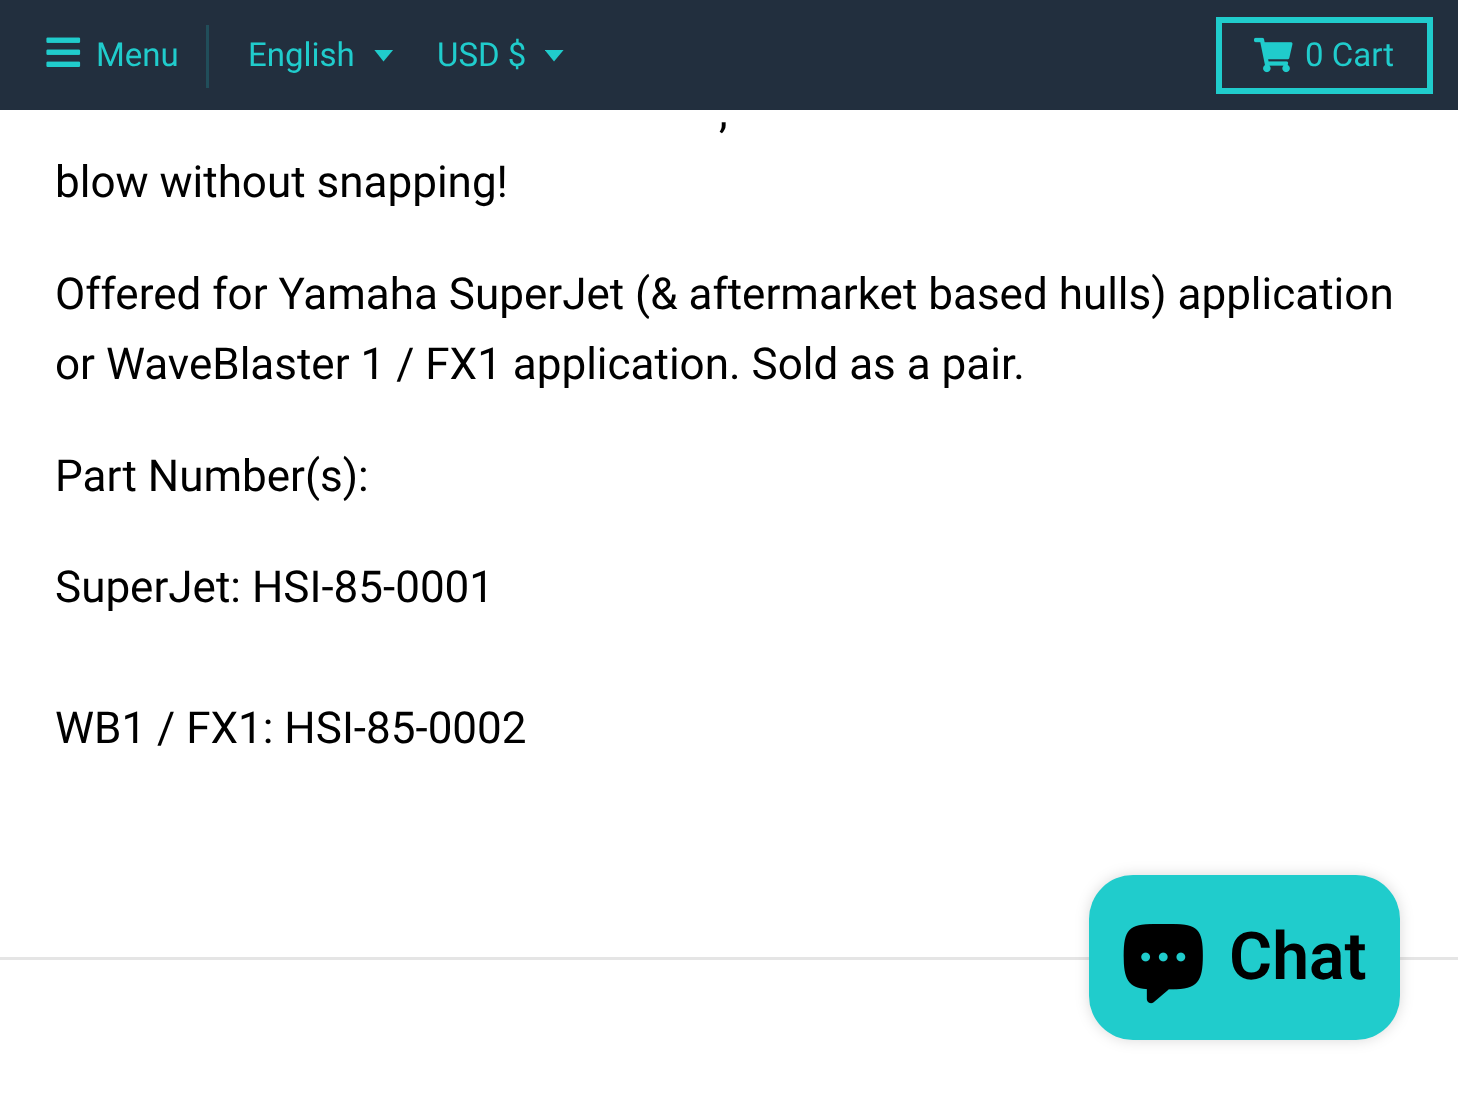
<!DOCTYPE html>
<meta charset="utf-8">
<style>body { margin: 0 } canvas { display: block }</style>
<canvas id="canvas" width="1458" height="1096"></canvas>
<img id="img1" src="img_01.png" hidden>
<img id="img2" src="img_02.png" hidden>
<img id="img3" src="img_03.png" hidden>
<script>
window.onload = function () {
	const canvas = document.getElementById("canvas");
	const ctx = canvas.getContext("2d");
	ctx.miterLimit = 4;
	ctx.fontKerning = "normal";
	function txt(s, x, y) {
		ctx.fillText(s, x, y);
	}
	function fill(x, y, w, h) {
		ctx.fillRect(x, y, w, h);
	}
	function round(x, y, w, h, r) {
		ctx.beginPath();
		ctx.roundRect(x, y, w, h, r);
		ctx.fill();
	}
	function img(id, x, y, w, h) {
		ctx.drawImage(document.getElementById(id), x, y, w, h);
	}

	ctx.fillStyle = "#FFFFFF";
	fill(0, 0, 1458, 1096);
	ctx.fillStyle = "#222F3E";
	fill(0, 0, 1458, 110);
	img("img1", 46, 37, 35, 30);
	ctx.fillStyle = "#214E5A";
	fill(206, 25, 3, 63);
	ctx.save();
	ctx.beginPath();
	ctx.rect(374, 50, 22, 13);
	ctx.clip();
	ctx.fillStyle = "#20CCCC";
	ctx.beginPath();
	ctx.moveTo(374, 49.5);
	ctx.lineTo(383.5, 61.5);
	ctx.lineTo(393.5, 49.5);
	ctx.closePath();
	ctx.fill();
	ctx.restore();
	ctx.save();
	ctx.beginPath();
	ctx.rect(545, 50, 22, 13);
	ctx.clip();
	ctx.fillStyle = "#20CCCC";
	ctx.beginPath();
	ctx.moveTo(544.5, 49.5);
	ctx.lineTo(554, 61.5);
	ctx.lineTo(564, 49.5);
	ctx.closePath();
	ctx.fill();
	ctx.restore();
	ctx.strokeStyle = "#20CCCC";
	ctx.lineWidth = 6;
	ctx.strokeRect(1219, 20, 211, 71);
	img("img2", 1254, 37, 39, 36);
	ctx.fillStyle = "#E5E5E5";
	fill(0, 957, 1458, 3);
	ctx.fillStyle = "rgba(0, 0, 0, 0.15)";
	ctx.filter = "blur(7px)";
	ctx.beginPath();
	ctx.roundRect(1089, 875, 311, 165, 44);
	ctx.fill();
	ctx.filter = "none";
	ctx.fillStyle = "#20CCCC";
	round(1089, 875, 311, 165, 44);
	img("img3", 1123, 924, 80, 80);
	ctx.font = "33px Roboto";
	txt("Menu", 96, 66);
	txt("English", 248, 66);
	txt("USD $", 437, 66);
	txt("0 Cart", 1305, 66);
	ctx.font = "44px Roboto";
	ctx.fillStyle = "#000000";
	txt(",", 719, 127);
	txt("blow without snapping!", 55, 197);
	txt("Offered for Yamaha SuperJet (& aftermarket based hulls) application", 55, 309);
	txt("or WaveBlaster 1 / FX1 application. Sold as a pair.", 55, 379);
	txt("Part Number(s):", 55, 491);
	txt("SuperJet: HSI-85-0001", 55, 602);
	txt("WB1 / FX1: HSI-85-0002", 55, 743);
	ctx.font = "600 66px Roboto";
	txt("Chat", 1229, 979);
};
</script>
